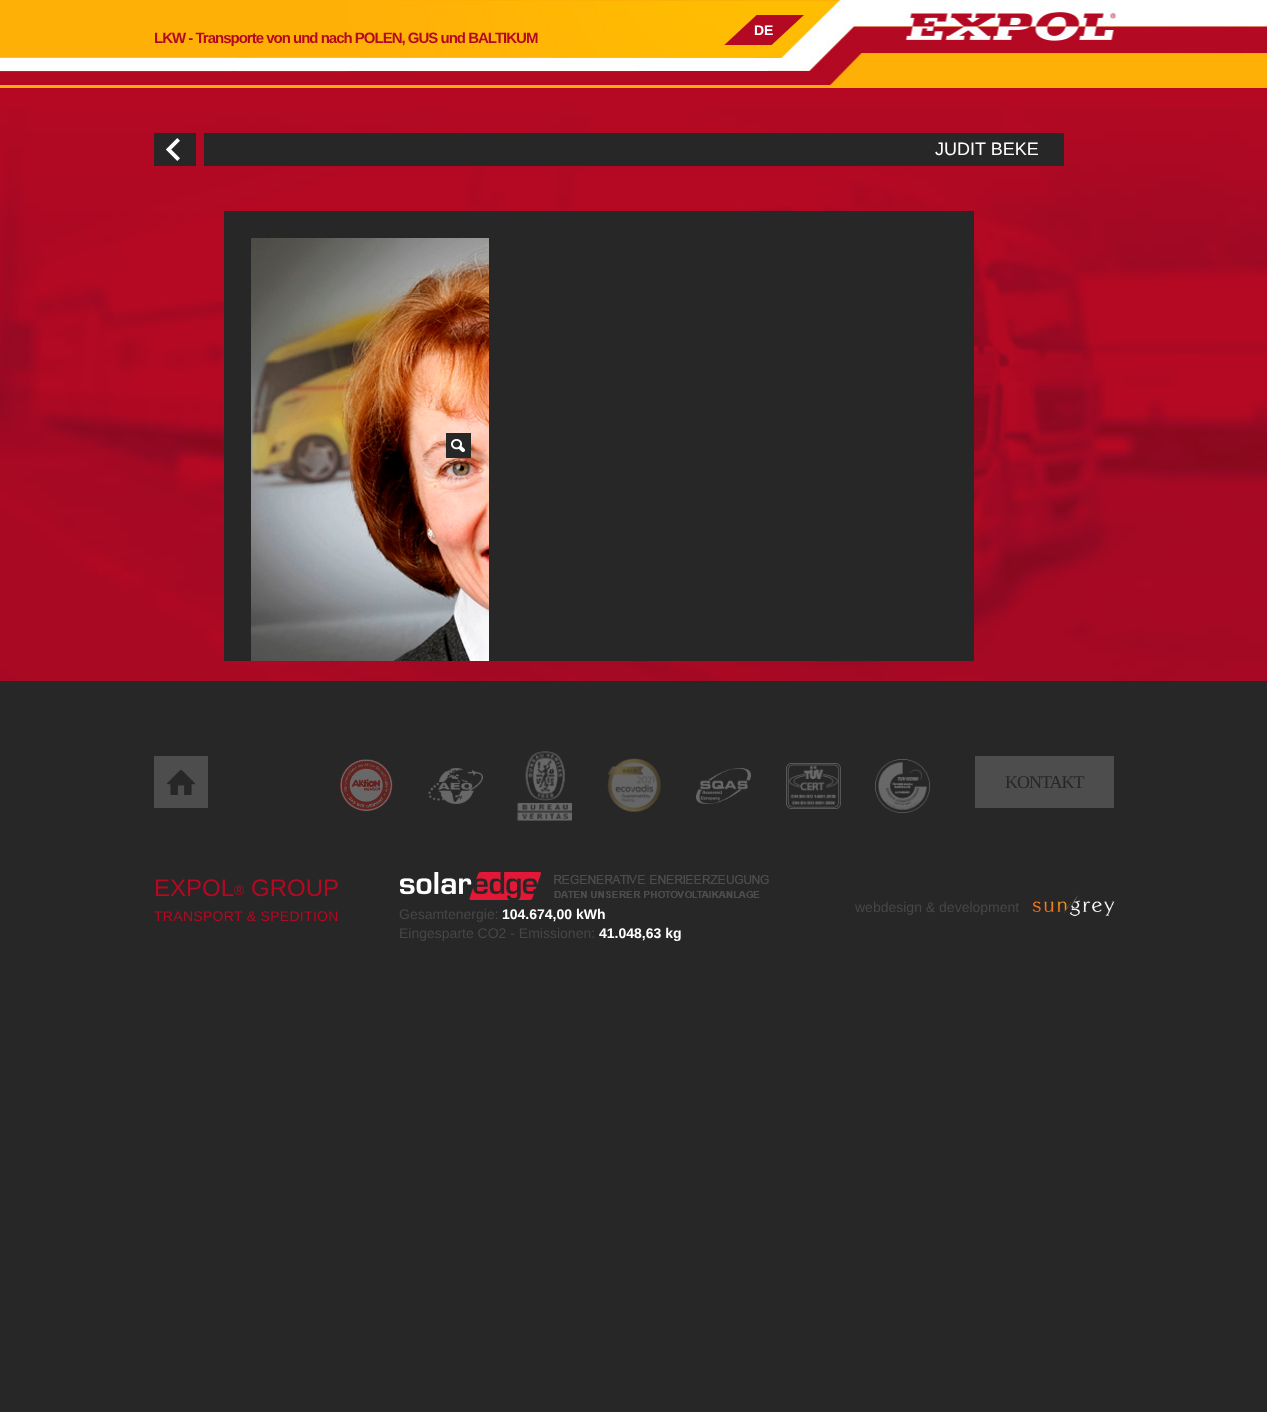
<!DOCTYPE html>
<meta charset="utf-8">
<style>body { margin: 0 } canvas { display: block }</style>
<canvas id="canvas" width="1267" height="1412"></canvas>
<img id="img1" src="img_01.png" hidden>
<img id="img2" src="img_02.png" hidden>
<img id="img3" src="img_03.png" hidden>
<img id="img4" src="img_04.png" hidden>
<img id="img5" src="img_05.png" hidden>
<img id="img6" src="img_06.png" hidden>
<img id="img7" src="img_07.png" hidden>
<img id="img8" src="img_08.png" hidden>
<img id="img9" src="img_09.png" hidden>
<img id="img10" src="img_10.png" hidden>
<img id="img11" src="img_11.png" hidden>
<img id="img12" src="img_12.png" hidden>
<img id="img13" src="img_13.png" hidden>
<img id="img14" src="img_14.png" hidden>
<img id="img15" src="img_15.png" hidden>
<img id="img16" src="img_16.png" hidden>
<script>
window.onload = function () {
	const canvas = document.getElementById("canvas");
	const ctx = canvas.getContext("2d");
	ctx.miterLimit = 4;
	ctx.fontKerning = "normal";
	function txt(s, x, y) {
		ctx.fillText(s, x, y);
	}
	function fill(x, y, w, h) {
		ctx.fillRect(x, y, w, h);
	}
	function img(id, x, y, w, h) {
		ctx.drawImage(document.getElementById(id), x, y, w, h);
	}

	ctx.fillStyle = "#272727";
	fill(0, 0, 1267, 1412);
	ctx.fillStyle = "#B50923";
	fill(0, 88, 1267, 20);
	img("img1", 0, 108, 1267, 573);
	img("img2", 0, 0, 1267, 88);
	img("img3", 724, 15, 80, 30);
	ctx.fillStyle = "#272727";
	fill(154, 133, 42, 33);
	img("img4", 166, 138, 14, 23);
	fill(204, 133, 860, 33);
	fill(224, 211, 750, 450);
	img("img5", 251, 238, 238, 423);
	fill(446, 433, 25, 25);
	img("img6", 451, 439, 14, 13);
	ctx.fillStyle = "#4D4D4D";
	fill(154, 756, 54, 52);
	img("img7", 167, 770, 28, 25);
	img("img8", 339, 759, 54, 53);
	img("img9", 428, 768, 55, 36);
	img("img10", 517, 751, 55, 70);
	img("img11", 607, 758, 54, 54);
	img("img12", 696, 768, 55, 36);
	img("img13", 786, 763, 55, 46);
	img("img14", 875, 759, 55, 54);
	fill(975, 756, 139, 52);
	img("img15", 400, 871, 369, 29);
	img("img16", 1032, 895, 83, 21);
	ctx.font = "bold 14px Liberation Sans";
	ctx.fillStyle = "#FFFFFF";
	txt("DE", 754, 35);
	ctx.letterSpacing = "-1px";
	ctx.font = "bold 15px Liberation Sans";
	ctx.fillStyle = "#B40923";
	txt("LKW - Transporte von und nach POLEN, GUS und BALTIKUM", 154, 43);
	ctx.letterSpacing = "0px";
	ctx.font = "18px Liberation Sans";
	ctx.fillStyle = "#FFFFFF";
	txt("JUDIT BEKE", 935, 155);
	ctx.letterSpacing = "-1px";
	ctx.font = "18px Liberation Serif";
	ctx.fillStyle = "#272727";
	txt("KONTAKT", 1005, 788);
	ctx.letterSpacing = "0px";
	ctx.font = "24px Liberation Sans";
	ctx.fillStyle = "#B40923";
	txt("EXPOL", 154, 896);
	ctx.font = "14px Liberation Sans";
	txt("®", 234, 895);
	ctx.font = "24px Liberation Sans";
	txt("GROUP", 251, 896);
	ctx.letterSpacing = "0.3px";
	ctx.font = "14px Liberation Sans";
	txt("TRANSPORT & SPEDITION", 154, 921);
	ctx.letterSpacing = "0px";
	ctx.fillStyle = "#474747";
	txt("Gesamtenergie:", 399, 919);
	ctx.font = "bold 14px Liberation Sans";
	ctx.fillStyle = "#FFFFFF";
	txt("104.674,00 kWh", 502, 919);
	ctx.font = "14px Liberation Sans";
	ctx.fillStyle = "#474747";
	txt("Eingesparte CO2 - Emissionen:", 399, 938);
	ctx.font = "bold 14px Liberation Sans";
	ctx.fillStyle = "#FFFFFF";
	txt("41.048,63 kg", 599, 938);
	ctx.font = "14px Liberation Sans";
	ctx.fillStyle = "#474747";
	txt("webdesign & development", 855, 912);
};
</script>
